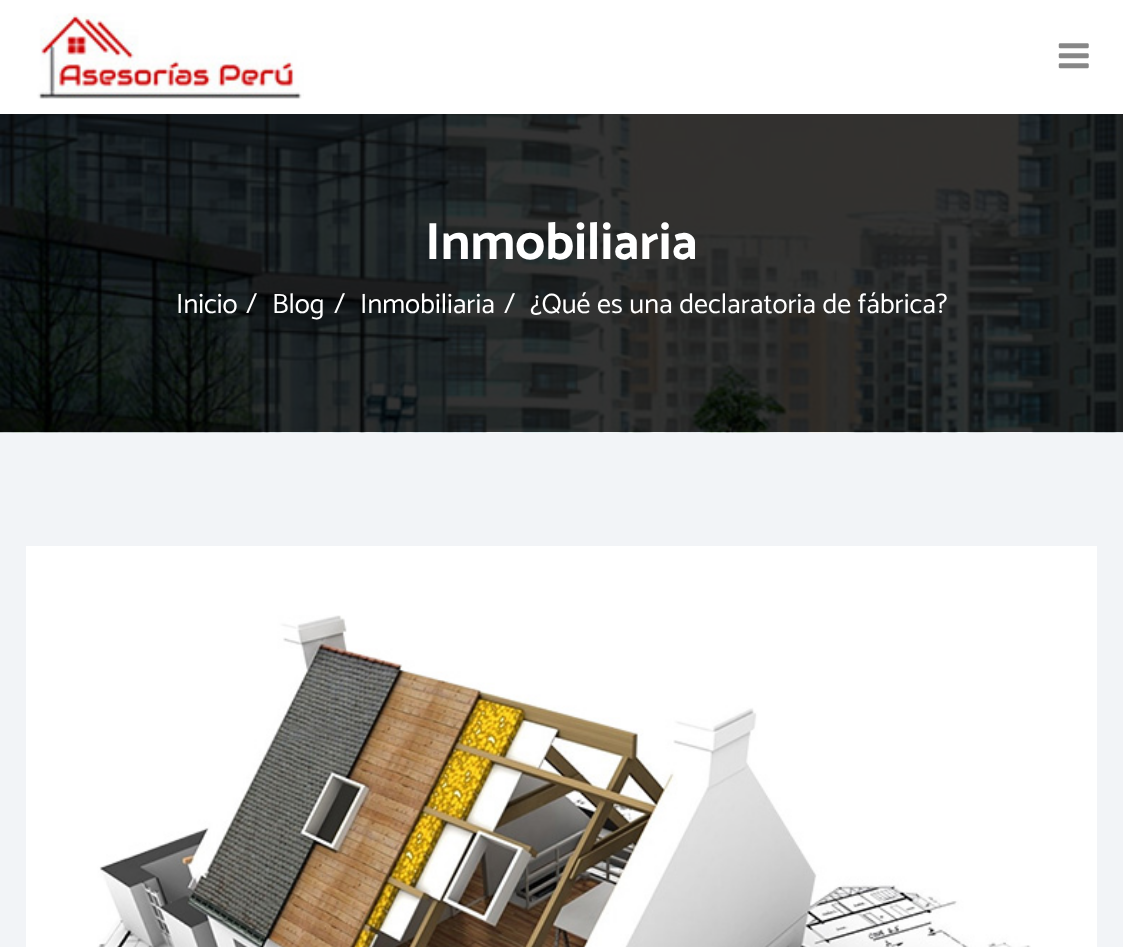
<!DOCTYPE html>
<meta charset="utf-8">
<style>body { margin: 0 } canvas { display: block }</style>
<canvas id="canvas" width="1123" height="947"></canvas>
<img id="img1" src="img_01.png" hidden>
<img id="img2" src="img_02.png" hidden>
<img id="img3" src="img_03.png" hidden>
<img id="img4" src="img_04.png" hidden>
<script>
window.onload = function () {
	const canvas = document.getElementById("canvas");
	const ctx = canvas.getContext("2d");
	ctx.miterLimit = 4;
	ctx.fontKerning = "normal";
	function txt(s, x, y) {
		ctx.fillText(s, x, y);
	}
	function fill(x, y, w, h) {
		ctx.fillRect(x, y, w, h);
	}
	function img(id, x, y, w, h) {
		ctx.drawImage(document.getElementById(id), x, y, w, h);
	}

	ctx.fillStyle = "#F2F4F7";
	fill(0, 0, 1123, 947);
	ctx.fillStyle = "#FFFFFF";
	fill(0, 0, 1123, 114);
	img("img1", 37, 13, 267, 86);
	img("img2", 1058, 43, 31, 26);
	img("img3", 0, 114, 1123, 319);
	fill(26, 546, 1071, 401);
	img("img4", 97, 615, 934, 332);
	ctx.font = "bold 52.5px Catamaran";
	txt("Inmobiliaria", 425, 259);
	ctx.font = "28px Catamaran";
	txt("Inicio", 176, 313);
	txt("/", 246, 313);
	txt("Blog", 272, 313);
	txt("/", 334, 313);
	txt("Inmobiliaria", 360, 313);
	txt("/", 504, 313);
	txt("¿Qué es una declaratoria de fábrica?", 530, 313);
};
</script>
